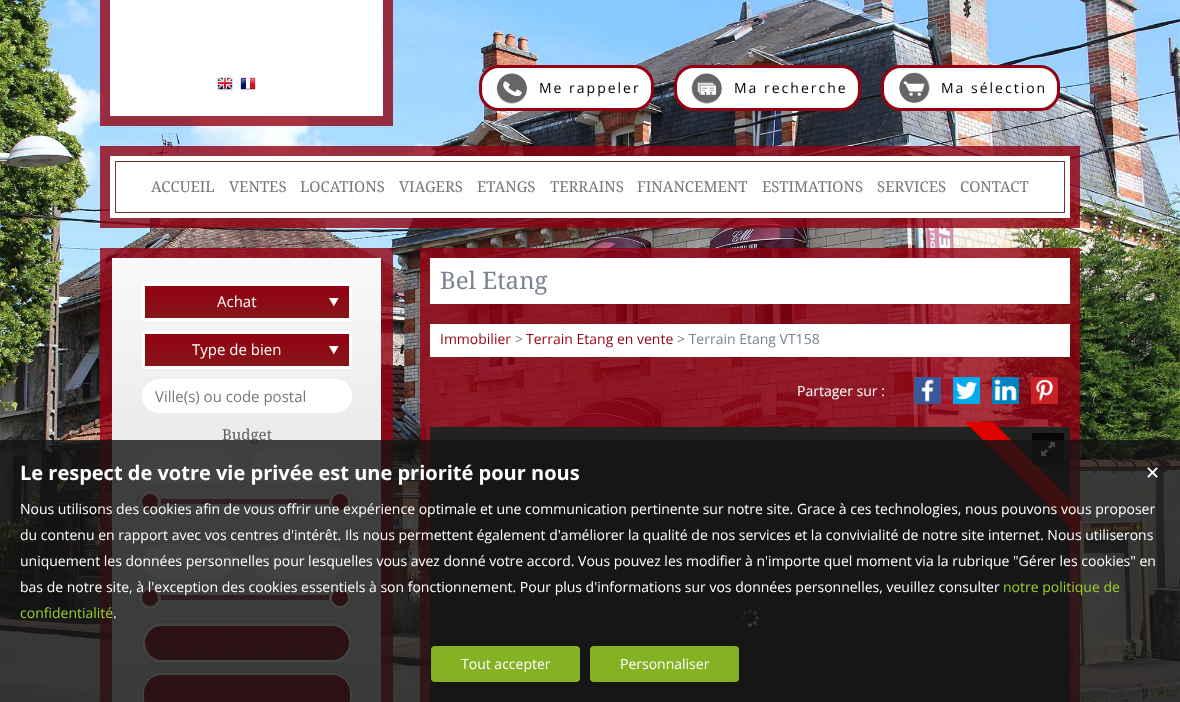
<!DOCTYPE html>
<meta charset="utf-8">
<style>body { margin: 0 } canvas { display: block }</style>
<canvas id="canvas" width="1180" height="702"></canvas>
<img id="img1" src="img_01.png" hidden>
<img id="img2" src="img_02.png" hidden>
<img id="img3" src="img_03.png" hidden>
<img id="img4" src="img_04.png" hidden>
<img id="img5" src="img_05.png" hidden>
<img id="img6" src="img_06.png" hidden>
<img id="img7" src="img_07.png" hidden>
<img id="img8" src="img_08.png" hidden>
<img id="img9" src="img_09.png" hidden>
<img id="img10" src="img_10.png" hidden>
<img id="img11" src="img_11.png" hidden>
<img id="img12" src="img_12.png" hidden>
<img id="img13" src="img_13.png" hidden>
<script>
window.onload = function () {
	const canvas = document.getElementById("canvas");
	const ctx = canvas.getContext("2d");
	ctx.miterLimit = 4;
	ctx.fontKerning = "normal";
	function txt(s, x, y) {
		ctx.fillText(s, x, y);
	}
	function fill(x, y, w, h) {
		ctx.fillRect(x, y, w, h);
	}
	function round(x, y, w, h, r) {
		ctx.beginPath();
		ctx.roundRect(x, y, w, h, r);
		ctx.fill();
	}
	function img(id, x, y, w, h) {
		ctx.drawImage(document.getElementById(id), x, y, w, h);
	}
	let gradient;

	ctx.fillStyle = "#FFFFFF";
	fill(0, 0, 1180, 702);
	img("img1", 0, 0, 1180, 702);
	ctx.fillStyle = "rgba(148, 0, 17, 0.8)";
	fill(100, 0, 293, 126);
	ctx.fillStyle = "#FFFFFF";
	fill(110, 0, 273, 116);
	img("img2", 217, 77, 16, 14);
	img("img3", 240, 77, 16, 14);
	ctx.beginPath();
	ctx.roundRect(480.5, 66.5, 172, 43, 18.5);
	ctx.fill();
	ctx.strokeStyle = "#940011";
	ctx.lineWidth = 3;
	ctx.stroke();
	img("img4", 496, 73, 31, 31);
	ctx.beginPath();
	ctx.arc(512, 88, 17.5, 0, Math.PI * 2);
	ctx.strokeStyle = "rgba(255, 255, 255, 0.65)";
	ctx.lineWidth = 5;
	ctx.stroke();
	ctx.beginPath();
	ctx.roundRect(675.5, 66.5, 184, 43, 18.5);
	ctx.fill();
	ctx.strokeStyle = "#940011";
	ctx.lineWidth = 3;
	ctx.stroke();
	img("img5", 691, 73, 31, 31);
	ctx.beginPath();
	ctx.arc(707, 88, 17.5, 0, Math.PI * 2);
	ctx.strokeStyle = "rgba(255, 255, 255, 0.65)";
	ctx.lineWidth = 5;
	ctx.stroke();
	ctx.beginPath();
	ctx.roundRect(882.5, 66.5, 176, 43, 18.5);
	ctx.fill();
	ctx.strokeStyle = "#940011";
	ctx.lineWidth = 3;
	ctx.stroke();
	img("img6", 899, 72, 31, 31);
	ctx.beginPath();
	ctx.arc(914, 88, 17.5, 0, Math.PI * 2);
	ctx.strokeStyle = "rgba(255, 255, 255, 0.65)";
	ctx.lineWidth = 5;
	ctx.stroke();
	ctx.fillStyle = "rgba(148, 0, 17, 0.8)";
	fill(100, 146, 980, 82);
	ctx.strokeStyle = "#FFFFFF";
	ctx.strokeRect(112.5, 158.5, 955, 57);
	ctx.fillStyle = "#FFFFFF";
	ctx.beginPath();
	ctx.rect(115.5, 161.5, 949, 51);
	ctx.fill();
	ctx.strokeStyle = "#763031";
	ctx.lineWidth = 1;
	ctx.stroke();
	ctx.fillStyle = "rgba(148, 0, 17, 0.8)";
	fill(100, 248, 293, 454);
	gradient = ctx.createLinearGradient(246, 258, 247, 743);
	gradient.addColorStop(0, "#F9F9F9");
	gradient.addColorStop(1, "#D2D2D2");
	ctx.fillStyle = gradient;
	fill(112, 258, 269, 444);
	ctx.fillStyle = "rgba(0, 0, 0, 0.2)";
	ctx.filter = "blur(0.5px)";
	ctx.beginPath();
	ctx.rect(142, 283, 210, 38);
	ctx.fill();
	ctx.filter = "none";
	gradient = ctx.createLinearGradient(247, 286, 247, 318);
	gradient.addColorStop(0, "#940011");
	gradient.addColorStop(1, "#86171A");
	ctx.fillStyle = gradient;
	fill(145, 286, 204, 32);
	ctx.strokeStyle = "#FFFFFF";
	ctx.lineWidth = 3;
	ctx.strokeRect(143.5, 284.5, 207, 35);
	img("img7", 329, 298, 10, 9);
	ctx.fillStyle = "rgba(0, 0, 0, 0.2)";
	ctx.filter = "blur(0.5px)";
	ctx.beginPath();
	ctx.rect(142, 331, 210, 38);
	ctx.fill();
	ctx.filter = "none";
	gradient = ctx.createLinearGradient(247, 334, 247, 366);
	gradient.addColorStop(0, "#940011");
	gradient.addColorStop(1, "#86171A");
	ctx.fillStyle = gradient;
	fill(145, 334, 204, 32);
	ctx.strokeRect(143.5, 332.5, 207, 35);
	img("img7", 329, 346, 10, 9);
	ctx.fillStyle = "#FFFFFF";
	round(142, 379, 210, 34, 17);
	ctx.fillStyle = "#F8F8F8";
	round(142, 449, 92, 34, 17);
	round(252, 449, 92, 34, 17);
	ctx.fillStyle = "#904A4B";
	fill(160, 499, 178, 5);
	ctx.fillStyle = "rgba(0, 0, 0, 0.3)";
	ctx.filter = "blur(1.5px)";
	ctx.beginPath();
	ctx.roundRect(139, 491, 22, 22, 11);
	ctx.fill();
	ctx.filter = "none";
	ctx.save();
	ctx.beginPath();
	ctx.roundRect(139, 491, 22, 22, 11);
	ctx.clip();
	gradient = ctx.createLinearGradient(150, 494, 150, 510);
	gradient.addColorStop(0, "#940011");
	gradient.addColorStop(1, "#86171A");
	ctx.fillStyle = gradient;
	fill(139, 494, 22, 16);
	ctx.restore();
	ctx.beginPath();
	ctx.arc(150, 502, 9.5, 0, Math.PI * 2);
	ctx.stroke();
	ctx.filter = "blur(1.5px)";
	ctx.beginPath();
	ctx.roundRect(329, 491, 22, 22, 11);
	ctx.fill();
	ctx.filter = "none";
	ctx.save();
	ctx.beginPath();
	ctx.roundRect(329, 491, 22, 22, 11);
	ctx.clip();
	gradient = ctx.createLinearGradient(340, 494, 340, 510);
	gradient.addColorStop(0, "#940011");
	gradient.addColorStop(1, "#86171A");
	ctx.fillStyle = gradient;
	fill(329, 494, 22, 16);
	ctx.restore();
	ctx.beginPath();
	ctx.arc(340, 502, 9.5, 0, Math.PI * 2);
	ctx.stroke();
	ctx.fillStyle = "#F8F8F8";
	round(142, 545, 92, 34, 17);
	round(252, 545, 92, 34, 17);
	ctx.fillStyle = "#904A4B";
	fill(160, 595, 178, 5);
	ctx.fillStyle = "rgba(0, 0, 0, 0.3)";
	ctx.filter = "blur(1.5px)";
	ctx.beginPath();
	ctx.roundRect(139, 587, 22, 22, 11);
	ctx.fill();
	ctx.filter = "none";
	ctx.save();
	ctx.beginPath();
	ctx.roundRect(139, 587, 22, 22, 11);
	ctx.clip();
	gradient = ctx.createLinearGradient(150, 590, 150, 606);
	gradient.addColorStop(0, "#940011");
	gradient.addColorStop(1, "#86171A");
	ctx.fillStyle = gradient;
	fill(139, 590, 22, 16);
	ctx.restore();
	ctx.beginPath();
	ctx.arc(150, 598, 9.5, 0, Math.PI * 2);
	ctx.stroke();
	ctx.filter = "blur(1.5px)";
	ctx.beginPath();
	ctx.roundRect(329, 587, 22, 22, 11);
	ctx.fill();
	ctx.filter = "none";
	ctx.save();
	ctx.beginPath();
	ctx.roundRect(329, 587, 22, 22, 11);
	ctx.clip();
	gradient = ctx.createLinearGradient(340, 590, 340, 606);
	gradient.addColorStop(0, "#940011");
	gradient.addColorStop(1, "#86171A");
	ctx.fillStyle = gradient;
	fill(329, 590, 22, 16);
	ctx.restore();
	ctx.beginPath();
	ctx.arc(340, 598, 9.5, 0, Math.PI * 2);
	ctx.stroke();
	ctx.fillStyle = "rgba(0, 0, 0, 0.2)";
	ctx.filter = "blur(1px)";
	ctx.beginPath();
	ctx.roundRect(142, 623, 210, 40, 20);
	ctx.fill();
	ctx.filter = "none";
	ctx.save();
	ctx.beginPath();
	ctx.roundRect(142, 623, 210, 40, 20);
	ctx.clip();
	gradient = ctx.createLinearGradient(247, 626, 247, 660);
	gradient.addColorStop(0, "#940011");
	gradient.addColorStop(1, "#86171A");
	ctx.fillStyle = gradient;
	fill(142, 626, 210, 34);
	ctx.restore();
	ctx.beginPath();
	ctx.roundRect(143.5, 624.5, 207, 37, 18.5);
	ctx.stroke();
	ctx.fillStyle = "#6B1214";
	fill(160, 626, 1, 34);
	fill(194, 626, 1, 34);
	fill(228, 626, 1, 34);
	fill(262, 626, 1, 34);
	fill(330, 626, 1, 34);
	fill(296, 626, 1, 34);
	ctx.fillStyle = "rgba(0, 0, 0, 0.2)";
	ctx.filter = "blur(1px)";
	ctx.beginPath();
	ctx.roundRect(142, 673, 210, 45, 20);
	ctx.fill();
	ctx.filter = "none";
	ctx.save();
	ctx.beginPath();
	ctx.roundRect(142, 673, 210, 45, 20);
	ctx.clip();
	gradient = ctx.createLinearGradient(247, 675, 247, 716);
	gradient.addColorStop(0, "#940011");
	gradient.addColorStop(1, "#86171A");
	ctx.fillStyle = gradient;
	fill(142, 675, 210, 27);
	ctx.restore();
	ctx.beginPath();
	ctx.roundRect(143, 674, 208, 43, 19);
	ctx.lineWidth = 2;
	ctx.stroke();
	ctx.fillStyle = "rgba(148, 0, 17, 0.8)";
	fill(420, 248, 660, 66);
	ctx.fillStyle = "#FFFFFF";
	fill(430, 258, 640, 46);
	ctx.fillStyle = "rgba(148, 0, 17, 0.8)";
	fill(420, 314, 660, 43);
	ctx.fillStyle = "#FFFFFF";
	fill(430, 324, 640, 33);
	ctx.fillStyle = "rgba(148, 0, 17, 0.8)";
	fill(420, 357, 660, 65);
	ctx.fillStyle = "#3B5998";
	fill(914, 377, 27, 27);
	img("img8", 921, 379, 13, 23);
	ctx.fillStyle = "#00ABF1";
	fill(953, 377, 27, 27);
	img("img9", 956, 381, 22, 19);
	ctx.fillStyle = "#0083BE";
	fill(992, 377, 27, 27);
	img("img10", 994, 379, 23, 22);
	ctx.fillStyle = "#CA2127";
	fill(1031, 377, 27, 27);
	img("img11", 1036, 379, 17, 23);
	ctx.fillStyle = "rgba(148, 0, 17, 0.8)";
	fill(420, 422, 660, 280);
	ctx.fillStyle = "#222222";
	fill(430, 427, 640, 275);
	ctx.save();
	ctx.beginPath();
	ctx.rect(957, 422, 123, 123);
	ctx.clip();
	ctx.fillStyle = "#DF0000";
	ctx.beginPath();
	ctx.moveTo(965, 394);
	ctx.lineTo(1107, 536);
	ctx.lineTo(1093, 550);
	ctx.lineTo(951, 408);
	ctx.closePath();
	ctx.fill();
	ctx.restore();
	ctx.fillStyle = "rgba(0, 0, 0, 0.75)";
	round(1032, 433, 32, 32, 2);
	img("img12", 1041, 442, 14, 14);
	img("img13", 741, 609, 18, 18);
	ctx.letterSpacing = "2px";
	ctx.font = "14px Open Sans";
	ctx.fillStyle = "#000000";
	txt("Me rappeler", 539, 93);
	txt("Ma recherche", 734, 93);
	txt("Ma sélection", 941, 93);
	ctx.letterSpacing = "0px";
	ctx.font = "15px Droid Serif";
	ctx.fillStyle = "#777777";
	txt("ACCUEIL", 151, 192);
	txt("VENTES", 229, 192);
	txt("LOCATIONS", 300, 192);
	txt("VIAGERS", 399, 192);
	txt("ETANGS", 477, 192);
	txt("TERRAINS", 550, 192);
	txt("FINANCEMENT", 637, 192);
	txt("ESTIMATIONS", 762, 192);
	txt("SERVICES", 877, 192);
	txt("CONTACT", 960, 192);
	ctx.font = "15px Open Sans";
	ctx.fillStyle = "#FFFFFF";
	txt("Achat", 217, 307);
	txt("Type de bien", 192, 355);
	ctx.fillStyle = "#777777";
	txt("Ville(s) ou code postal", 155, 402);
	ctx.font = "15px Droid Serif";
	ctx.fillStyle = "#626262";
	txt("Budget", 222, 440);
	ctx.font = "24px Droid Serif";
	ctx.fillStyle = "#7A838F";
	txt("Bel Etang", 440, 289);
	ctx.font = "14px Open Sans";
	ctx.fillStyle = "#940011";
	txt("Immobilier", 440, 344);
	ctx.fillStyle = "#7A838F";
	txt(">", 515, 344);
	ctx.fillStyle = "#940011";
	txt("Terrain Etang en vente", 526, 344);
	ctx.fillStyle = "#7A838F";
	txt("> Terrain Etang VT158", 677, 344);
	ctx.fillStyle = "#FFFFFF";
	txt("Partager sur :", 797, 396);
	ctx.fillStyle = "rgba(20, 20, 20, 0.8)";
	fill(0, 440, 1180, 262);
	ctx.font = "bold 20px Open Sans";
	ctx.fillStyle = "#FFFFFF";
	txt("Le respect de votre vie privée est une priorité pour nous", 20, 480);
	ctx.font = "18px DejaVu Sans";
	txt("✕", 1145, 479);
	ctx.font = "14px Open Sans";
	txt("Nous utilisons des cookies afin de vous offrir une expérience optimale et une communication pertinente sur notre site. Grace à ces technologies, nous pouvons vous proposer", 20, 514);
	txt("du contenu en rapport avec vos centres d'intérêt. Ils nous permettent également d'améliorer la qualité de nos services et la convivialité de notre site internet. Nous utiliserons", 20, 540);
	txt("uniquement les données personnelles pour lesquelles vous avez donné votre accord. Vous pouvez les modifier à n'importe quel moment via la rubrique \"Gérer les cookies\" en", 20, 566);
	txt("bas de notre site, à l'exception des cookies essentiels à son fonctionnement. Pour plus d'informations sur vos données personnelles, veuillez consulter", 20, 592);
	ctx.fillStyle = "#9CD22E";
	txt("notre politique de", 1003, 592);
	txt("confidentialité", 20, 618);
	ctx.fillStyle = "#FFFFFF";
	txt(".", 113, 618);
	ctx.fillStyle = "#84B222";
	round(431, 646, 149, 36, 4);
	ctx.fillStyle = "#FFFFFF";
	txt("Tout accepter", 461, 669);
	ctx.fillStyle = "#84B222";
	round(590, 646, 149, 36, 4);
	ctx.fillStyle = "#FFFFFF";
	txt("Personnaliser", 620, 669);
};
</script>
